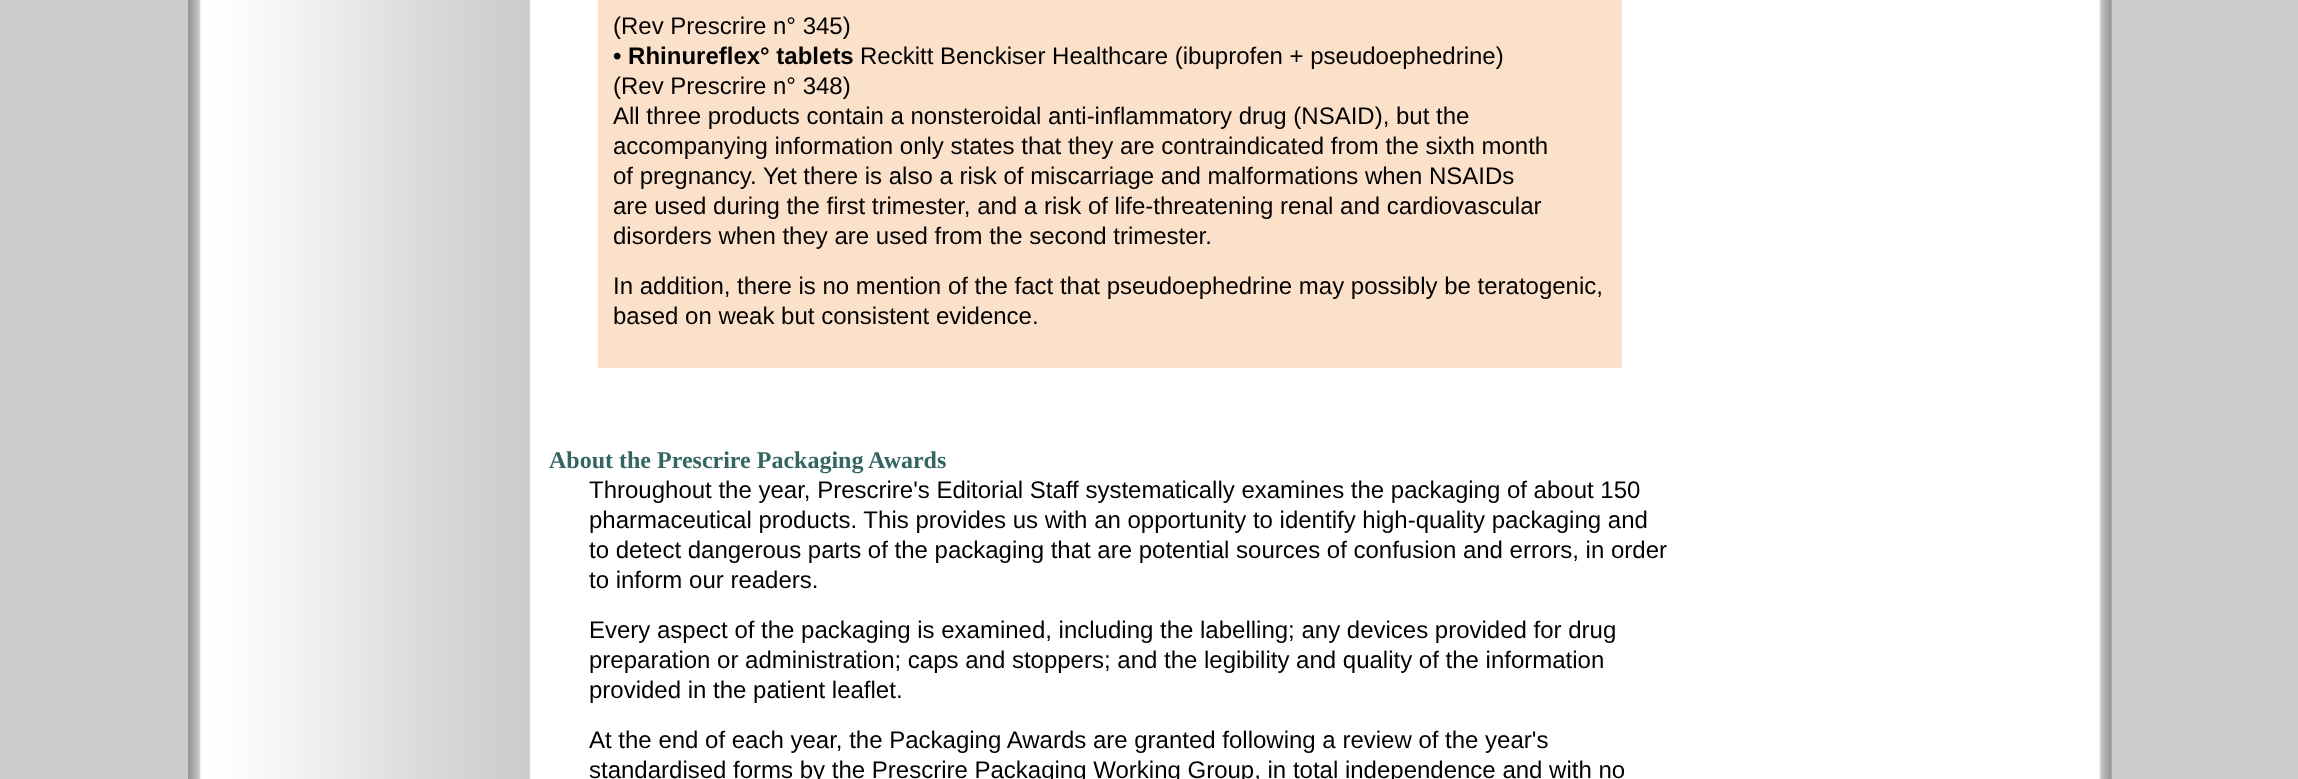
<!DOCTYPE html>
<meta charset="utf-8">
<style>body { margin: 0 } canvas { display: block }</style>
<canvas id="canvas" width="2298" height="779"></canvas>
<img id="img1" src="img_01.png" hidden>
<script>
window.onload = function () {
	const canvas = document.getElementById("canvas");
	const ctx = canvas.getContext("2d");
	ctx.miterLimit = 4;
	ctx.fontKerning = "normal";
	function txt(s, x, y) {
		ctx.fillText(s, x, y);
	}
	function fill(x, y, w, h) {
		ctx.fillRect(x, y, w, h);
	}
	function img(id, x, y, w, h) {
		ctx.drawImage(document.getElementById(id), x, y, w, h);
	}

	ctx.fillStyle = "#CCCCCC";
	fill(0, 0, 2298, 779);
	img("img1", 188, 0, 1924, 779);
	ctx.fillStyle = "#FCE1CA";
	fill(598, 0, 1024, 368);
	ctx.font = "24px Liberation Sans";
	ctx.fillStyle = "#000000";
	txt("(Rev Prescrire n° 345)", 613, 34);
	ctx.font = "bold 24px Liberation Sans";
	txt("• Rhinureflex° tablets", 613, 64);
	ctx.font = "24px Liberation Sans";
	txt("Reckitt Benckiser Healthcare (ibuprofen + pseudoephedrine)", 860, 64);
	txt("(Rev Prescrire n° 348)", 613, 94);
	txt("All three products contain a nonsteroidal anti-inflammatory drug (NSAID), but the", 613, 124);
	txt("accompanying information only states that they are contraindicated from the sixth month", 613, 154);
	txt("of pregnancy. Yet there is also a risk of miscarriage and malformations when NSAIDs", 613, 184);
	txt("are used during the first trimester, and a risk of life-threatening renal and cardiovascular", 613, 214);
	txt("disorders when they are used from the second trimester.", 613, 244);
	txt("In addition, there is no mention of the fact that pseudoephedrine may possibly be teratogenic,", 613, 294);
	txt("based on weak but consistent evidence.", 613, 324);
	ctx.font = "bold 24px Liberation Serif";
	ctx.fillStyle = "#336660";
	txt("About the Prescrire Packaging Awards", 549, 468);
	ctx.font = "24px Liberation Sans";
	ctx.fillStyle = "#000000";
	txt("Throughout the year, Prescrire's Editorial Staff systematically examines the packaging of about 150", 589, 498);
	txt("pharmaceutical products. This provides us with an opportunity to identify high-quality packaging and", 589, 528);
	txt("to detect dangerous parts of the packaging that are potential sources of confusion and errors, in order", 589, 558);
	txt("to inform our readers.", 589, 588);
	txt("Every aspect of the packaging is examined, including the labelling; any devices provided for drug", 589, 638);
	txt("preparation or administration; caps and stoppers; and the legibility and quality of the information", 589, 668);
	txt("provided in the patient leaflet.", 589, 698);
	txt("At the end of each year, the Packaging Awards are granted following a review of the year's", 589, 748);
	txt("standardised forms by the Prescrire Packaging Working Group, in total independence and with no", 589, 778);
};
</script>
